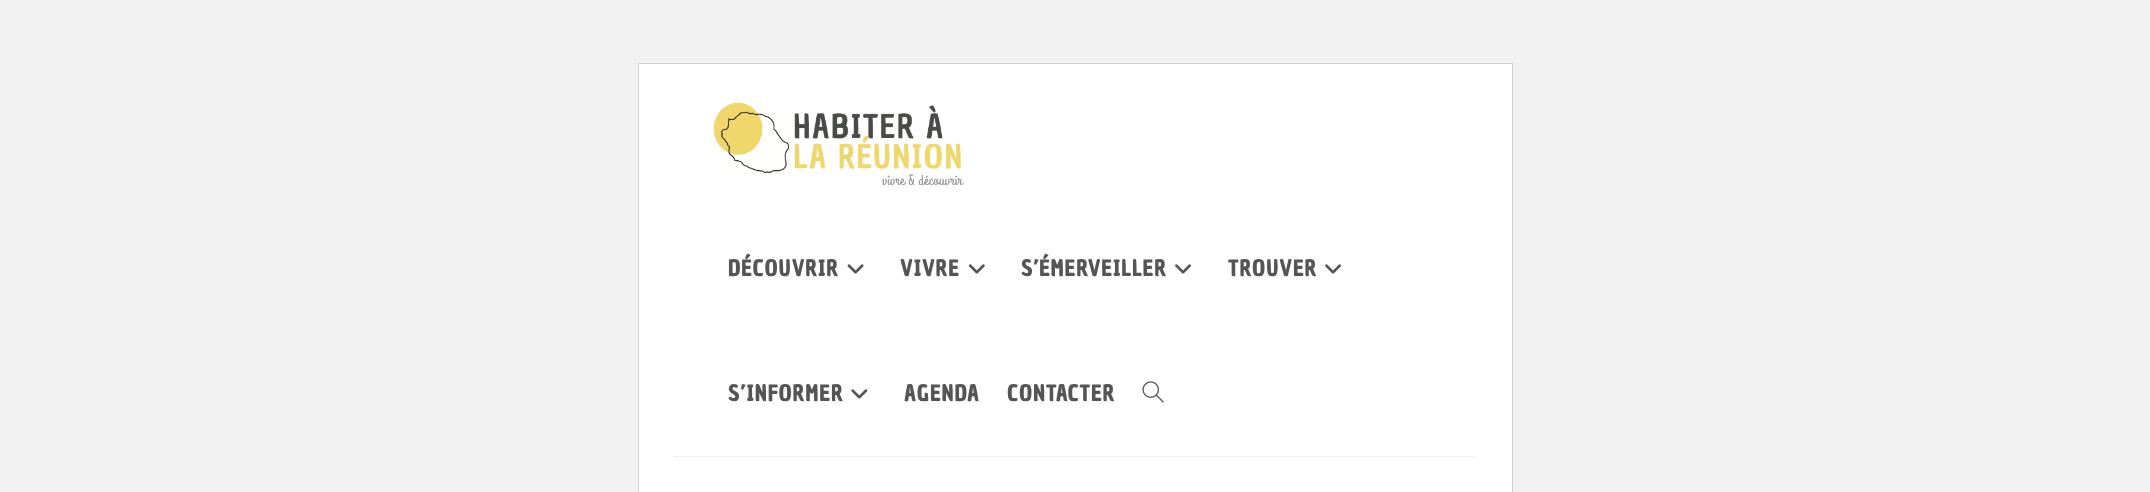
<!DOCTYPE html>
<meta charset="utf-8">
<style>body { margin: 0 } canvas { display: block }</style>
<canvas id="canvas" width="2150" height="492"></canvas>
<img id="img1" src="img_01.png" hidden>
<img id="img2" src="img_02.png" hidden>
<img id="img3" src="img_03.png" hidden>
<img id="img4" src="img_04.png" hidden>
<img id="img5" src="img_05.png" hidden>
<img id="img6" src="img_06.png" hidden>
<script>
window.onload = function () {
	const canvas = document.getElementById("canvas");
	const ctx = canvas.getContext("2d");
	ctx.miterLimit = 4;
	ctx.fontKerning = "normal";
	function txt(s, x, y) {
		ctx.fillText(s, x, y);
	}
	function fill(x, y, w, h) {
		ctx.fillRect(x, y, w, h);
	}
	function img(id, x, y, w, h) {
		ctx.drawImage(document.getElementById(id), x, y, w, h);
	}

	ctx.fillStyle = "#F1F1F1";
	fill(0, 0, 2150, 492);
	ctx.fillStyle = "#FFFFFF";
	ctx.beginPath();
	ctx.rect(638.5, 63.5, 874, 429);
	ctx.fill();
	ctx.strokeStyle = "#CCD0D4";
	ctx.stroke();
	ctx.fillStyle = "#F1F1F1";
	fill(674, 456, 802, 1);
	img("img1", 713, 102, 251, 83);
	img("img2", 847, 264, 17, 10);
	img("img3", 968, 264, 17, 10);
	img("img4", 1175, 264, 16, 10);
	img("img4", 1325, 264, 16, 10);
	img("img5", 851, 389, 17, 10);
	img("img6", 1142, 381, 22, 22);
	ctx.letterSpacing = "1.4px";
	ctx.font = "bold 21.25px Chau Philomene One";
	ctx.fillStyle = "#555555";
	txt("DÉCOUVRIR", 728, 276);
	txt("VIVRE", 900, 276);
	txt("S’ÉMERVEILLER", 1021, 276);
	txt("TROUVER", 1228, 276);
	txt("S’INFORMER", 728, 401);
	txt("AGENDA", 904, 401);
	txt("CONTACTER", 1007, 401);
};
</script>
